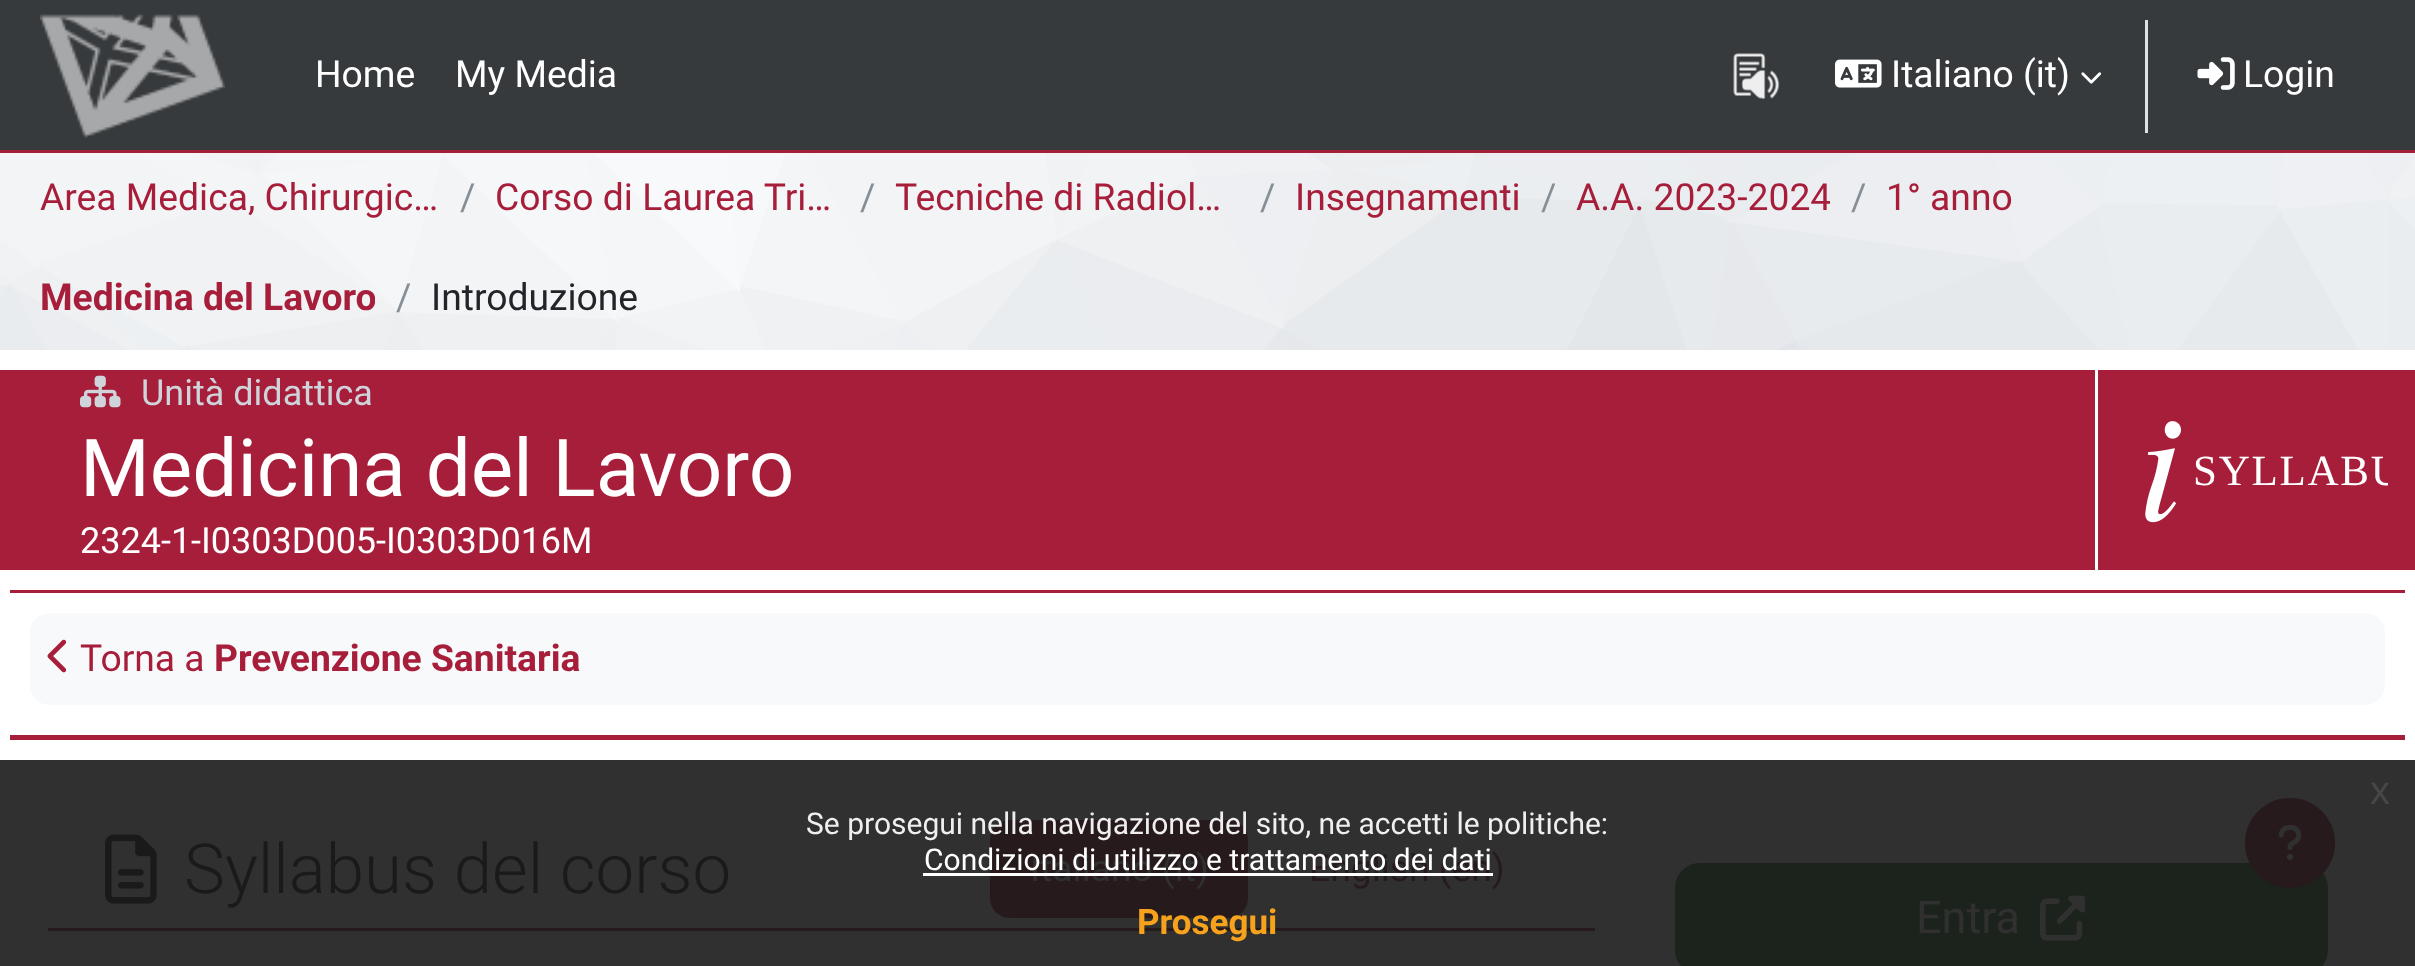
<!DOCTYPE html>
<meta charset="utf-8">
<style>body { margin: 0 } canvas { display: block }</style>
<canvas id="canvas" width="2415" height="966"></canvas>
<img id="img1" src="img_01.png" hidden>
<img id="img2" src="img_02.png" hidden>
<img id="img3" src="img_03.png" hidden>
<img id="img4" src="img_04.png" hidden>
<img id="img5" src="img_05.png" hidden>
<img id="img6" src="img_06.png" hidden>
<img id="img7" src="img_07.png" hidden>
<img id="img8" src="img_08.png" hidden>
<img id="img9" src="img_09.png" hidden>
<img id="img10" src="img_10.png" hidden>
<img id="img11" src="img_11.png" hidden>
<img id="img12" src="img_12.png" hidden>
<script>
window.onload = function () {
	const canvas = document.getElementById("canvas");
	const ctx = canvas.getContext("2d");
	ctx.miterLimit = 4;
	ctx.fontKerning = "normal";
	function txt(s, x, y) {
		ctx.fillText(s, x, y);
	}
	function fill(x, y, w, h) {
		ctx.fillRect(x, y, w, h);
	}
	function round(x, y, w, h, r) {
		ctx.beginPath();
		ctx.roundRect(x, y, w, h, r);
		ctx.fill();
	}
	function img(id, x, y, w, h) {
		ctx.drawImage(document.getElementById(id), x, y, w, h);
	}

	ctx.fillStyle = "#FFFFFF";
	fill(0, 0, 2415, 966);
	ctx.fillStyle = "#303030";
	fill(0, 760, 2415, 206);
	ctx.fillStyle = "#373A3C";
	fill(0, 0, 2415, 150);
	ctx.fillStyle = "#A71E3B";
	fill(0, 150, 2415, 3);
	img("img1", 40, 14, 185, 124);
	img("img2", 1733, 53, 47, 46);
	img("img3", 1835, 59, 47, 29);
	img("img4", 2081, 72, 21, 12);
	ctx.fillStyle = "#DEE2E6";
	fill(2145, 20, 3, 113);
	img("img5", 2197, 57, 38, 33);
	img("img6", 0, 153, 2415, 197);
	ctx.fillStyle = "#A71E3B";
	fill(0, 370, 2415, 200);
	img("img7", 80, 375, 41, 33);
	ctx.fillStyle = "#FFFFFF";
	fill(2095, 370, 3, 200);
	img("img8", 2145, 421, 36, 102);
	ctx.fillStyle = "#A71E3B";
	fill(10, 735, 2395, 5);
	fill(10, 590, 2395, 3);
	ctx.fillStyle = "#F8F9FA";
	round(30, 613, 2355, 92, 20);
	img("img9", 47, 639, 20, 34);
	ctx.fillStyle = "#271A1C";
	fill(48, 928, 1547, 3);
	img("img10", 105, 834, 52, 70);
	round(990, 820, 258, 98, 20);
	ctx.fillStyle = "#1C231C";
	ctx.beginPath();
	ctx.roundRect(1676.5, 864.5, 650, 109, 23.5);
	ctx.fill();
	ctx.strokeStyle = "#1C231C";
	ctx.lineWidth = 3;
	ctx.stroke();
	img("img11", 2040, 895, 45, 46);
	ctx.fillStyle = "#271A1C";
	ctx.beginPath();
	ctx.arc(2290, 843, 43.5, 0, Math.PI * 2);
	ctx.fill();
	ctx.strokeStyle = "#271A1C";
	ctx.stroke();
	img("img12", 2278, 825, 24, 35);
	ctx.font = "37.25px Roboto";
	ctx.fillStyle = "#FFFFFF";
	txt("Home", 315, 87);
	txt("My Media", 455, 87);
	txt("Italiano (it)", 1891, 87);
	txt("Login", 2243, 87);
	ctx.fillStyle = "#A71E3B";
	txt("Area Medica, Chirurgic…", 40, 210);
	ctx.fillStyle = "#868E96";
	txt("/", 460, 210);
	ctx.fillStyle = "#A71E3B";
	txt("Corso di Laurea Tri…", 495, 210);
	ctx.fillStyle = "#868E96";
	txt("/", 860, 210);
	ctx.fillStyle = "#A71E3B";
	txt("Tecniche di Radiol…", 895, 210);
	ctx.fillStyle = "#868E96";
	txt("/", 1260, 210);
	ctx.fillStyle = "#A71E3B";
	txt("Insegnamenti", 1295, 210);
	ctx.fillStyle = "#868E96";
	txt("/", 1541, 210);
	ctx.save();
	ctx.beginPath();
	ctx.rect(1520, 170, 310, 60);
	ctx.clip();
	ctx.fillStyle = "#A71E3B";
	txt("A.A. 2023-2024", 1576, 210);
	ctx.restore();
	txt("/", 1851, 210);
	ctx.fillStyle = "#A71E3B";
	txt("1° anno", 1886, 210);
	ctx.save();
	ctx.beginPath();
	ctx.rect(40, 270, 335, 60);
	ctx.clip();
	ctx.font = "bold 37.25px Roboto";
	txt("Medicina del Lavoro", 40, 310);
	ctx.restore();
	ctx.fillStyle = "#868E96";
	txt("/", 396, 310);
	ctx.fillStyle = "#212529";
	txt("Introduzione", 431, 310);
	ctx.font = "36px Roboto";
	ctx.fillStyle = "#CED4DA";
	txt("Unità didattica", 141, 405);
	ctx.font = "80px Roboto";
	ctx.fillStyle = "#FFFFFF";
	txt("Medicina del Lavoro", 80, 496);
	ctx.font = "36px Roboto";
	txt("2324-1-I0303D005-I0303D016M", 80, 553);
	ctx.save();
	ctx.beginPath();
	ctx.rect(2125, 393, 263, 160);
	ctx.clip();
	ctx.letterSpacing = "1.75px";
	ctx.font = "43px Liberation Serif";
	txt("SYLLABU", 2193, 485);
	ctx.restore();
	ctx.font = "37.25px Roboto";
	ctx.fillStyle = "#A71E3B";
	txt("Torna a", 80, 671);
	ctx.font = "bold 37.25px Roboto";
	txt("Prevenzione Sanitaria", 214, 671);
	ctx.font = "300 69px Roboto";
	ctx.fillStyle = "#1A1A1B";
	txt("Syllabus del corso", 184, 893);
	ctx.font = "37.25px Roboto";
	ctx.fillStyle = "#303030";
	txt("Italiano (it)", 1030, 881);
	ctx.fillStyle = "#271A1C";
	txt("English (en)", 1309, 881);
	ctx.font = "45px Roboto";
	ctx.fillStyle = "#303030";
	txt("Entra", 1916, 933);
	ctx.font = "40px Liberation Sans";
	ctx.fillStyle = "#474747";
	txt("x", 2370, 804);
	ctx.font = "30px Roboto";
	ctx.fillStyle = "#EFEFEF";
	txt("Se prosegui nella navigazione del sito, ne accetti le politiche:", 806, 834);
	ctx.fillStyle = "#FFFFFF";
	txt("Condizioni di utilizzo e trattamento dei dati", 924, 870);
	fill(923, 873, 570, 3);
	ctx.font = "bold 35px Roboto";
	ctx.fillStyle = "#F6A21D";
	txt("Prosegui", 1137, 934);
};
</script>
